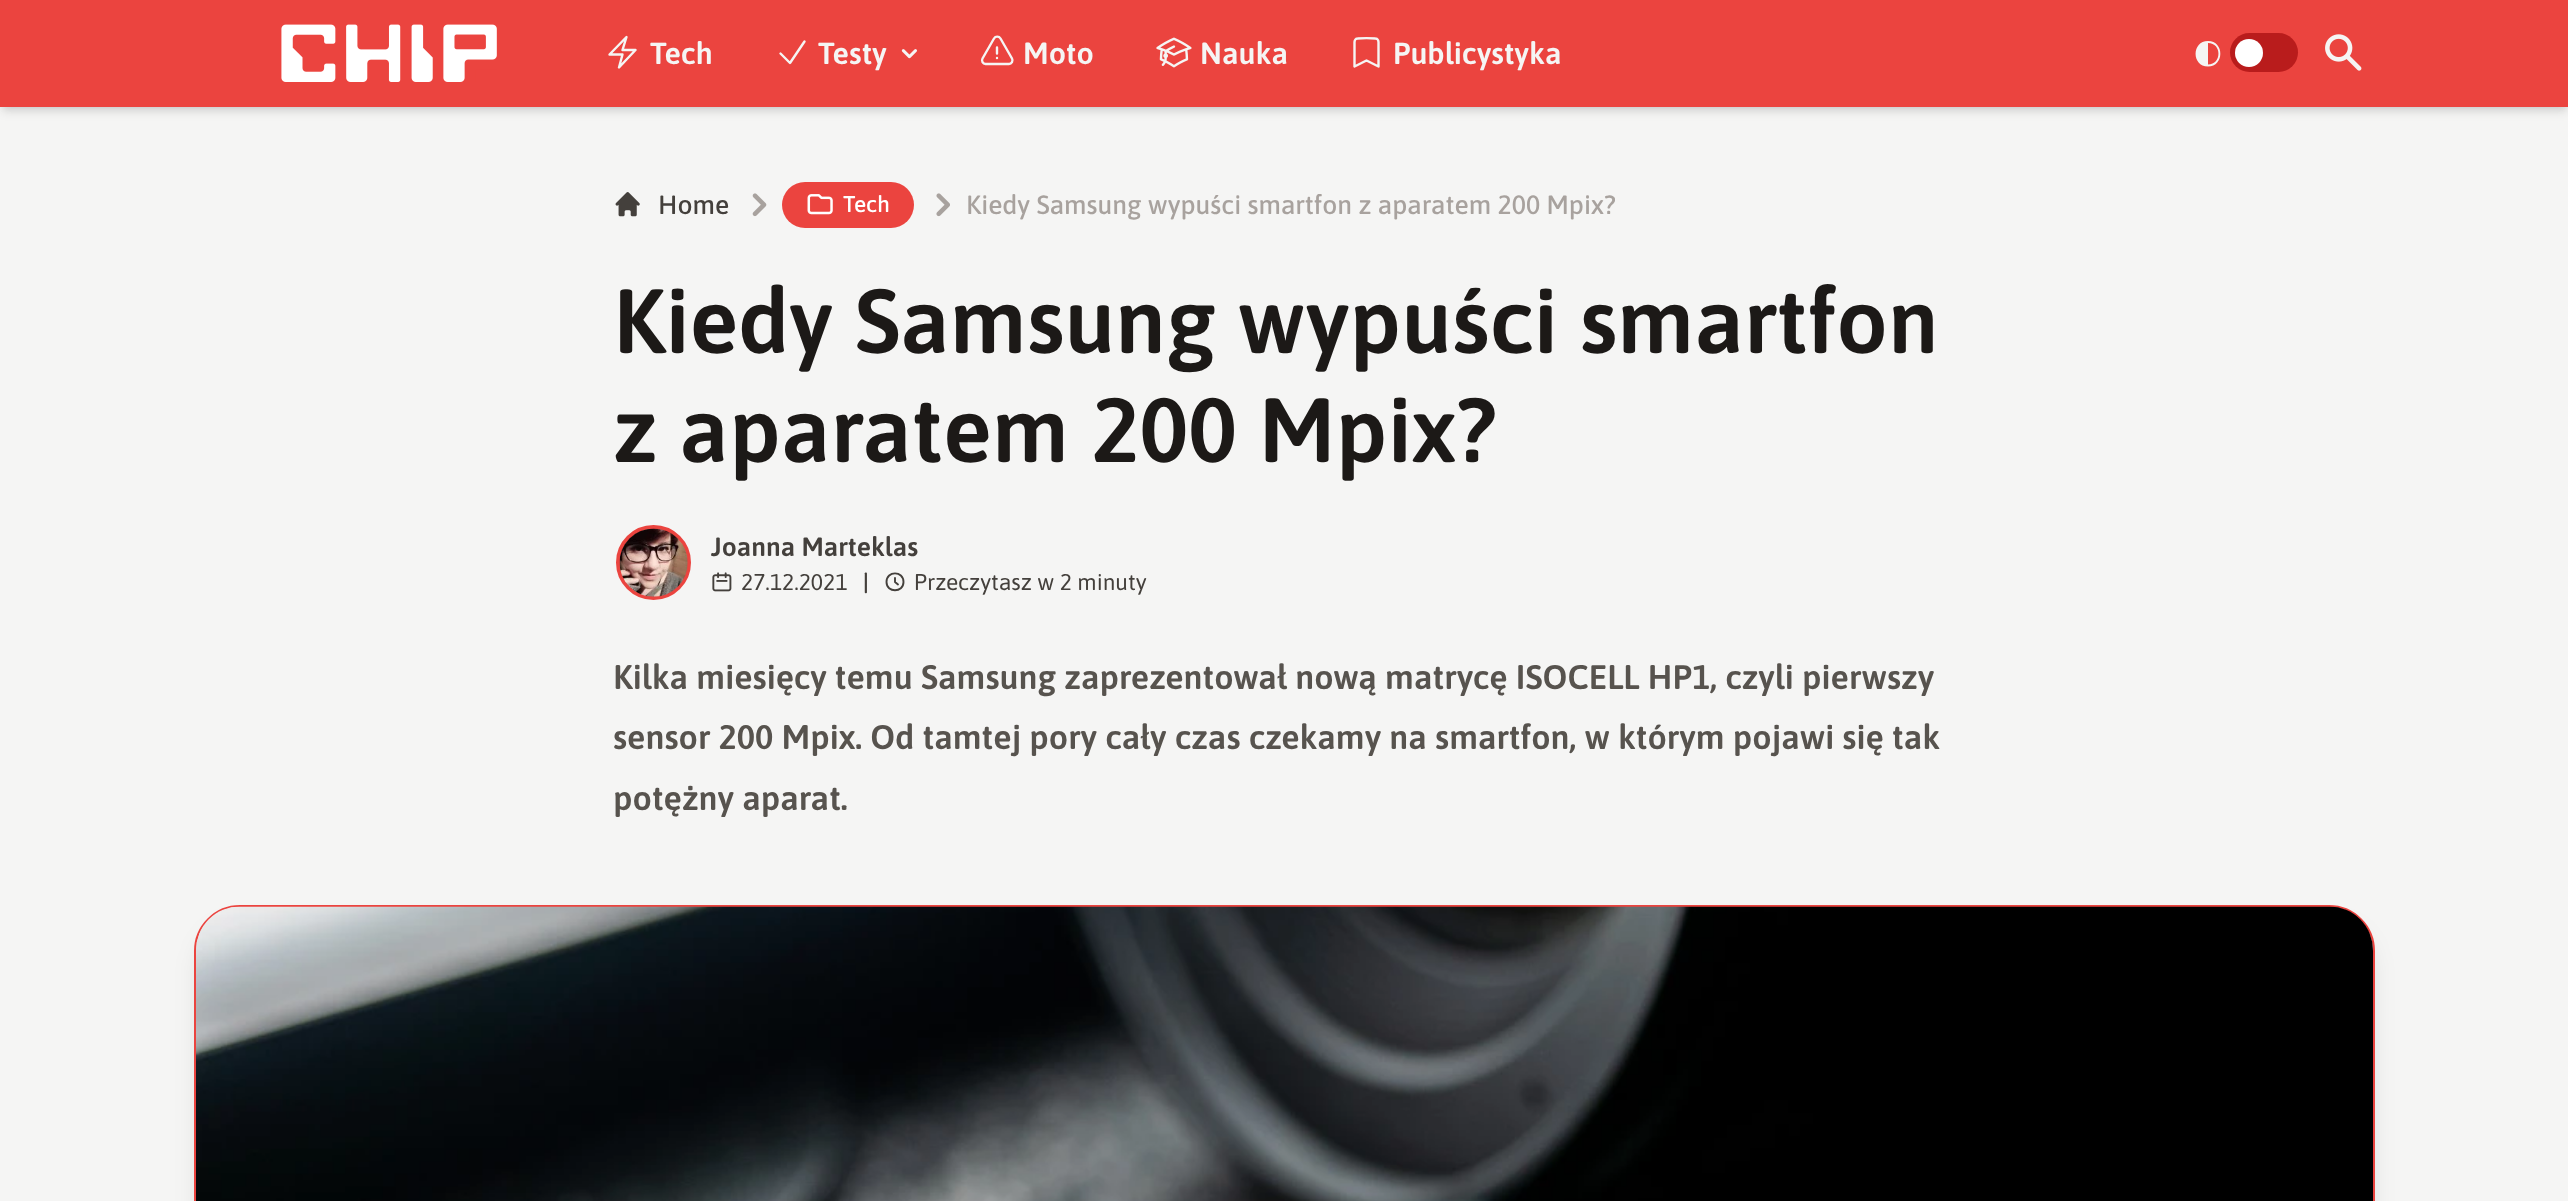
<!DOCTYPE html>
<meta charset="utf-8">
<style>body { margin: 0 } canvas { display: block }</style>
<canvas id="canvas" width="2568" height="1201"></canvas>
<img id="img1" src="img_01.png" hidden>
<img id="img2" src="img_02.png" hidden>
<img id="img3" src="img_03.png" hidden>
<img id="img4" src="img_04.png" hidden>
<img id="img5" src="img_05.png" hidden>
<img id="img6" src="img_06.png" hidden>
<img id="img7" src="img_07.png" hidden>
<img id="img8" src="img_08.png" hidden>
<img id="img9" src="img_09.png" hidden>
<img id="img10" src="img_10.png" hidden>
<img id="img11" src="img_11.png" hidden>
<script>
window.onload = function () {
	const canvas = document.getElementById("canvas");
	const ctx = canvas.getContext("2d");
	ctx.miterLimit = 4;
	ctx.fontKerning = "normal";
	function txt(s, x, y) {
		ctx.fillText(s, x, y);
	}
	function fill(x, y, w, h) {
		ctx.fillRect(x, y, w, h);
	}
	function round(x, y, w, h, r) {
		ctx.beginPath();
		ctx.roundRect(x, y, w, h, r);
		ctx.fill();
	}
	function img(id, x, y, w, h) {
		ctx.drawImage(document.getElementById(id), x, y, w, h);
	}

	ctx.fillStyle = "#F5F5F4";
	fill(0, 0, 2568, 1201);
	ctx.fillStyle = "rgba(0, 0, 0, 0.1)";
	ctx.filter = "blur(3.5px)";
	ctx.beginPath();
	ctx.rect(4, 7, 2562, 100);
	ctx.fill();
	ctx.filter = "none";
	ctx.filter = "blur(5px)";
	ctx.beginPath();
	ctx.rect(2, 9, 2565, 103);
	ctx.fill();
	ctx.filter = "none";
	ctx.fillStyle = "#EB443F";
	fill(0, 0, 2568, 107);
	img("img1", 281, 24, 216, 58);
	ctx.beginPath();
	ctx.moveTo(609.5, 54.5);
	ctx.lineTo(626.5, 37);
	ctx.lineTo(622.5, 50);
	ctx.lineTo(635.5, 50);
	ctx.lineTo(619, 67.5);
	ctx.lineTo(622.5, 54.5);
	ctx.closePath();
	ctx.strokeStyle = "#F5F5F4";
	ctx.lineWidth = 2.4;
	ctx.lineCap = "round";
	ctx.lineJoin = "round";
	ctx.stroke();
	ctx.beginPath();
	ctx.moveTo(780.5, 53.5);
	ctx.lineTo(790, 63);
	ctx.lineTo(804.5, 41.5);
	ctx.stroke();
	img("img2", 901, 49, 16, 10);
	ctx.beginPath();
	ctx.moveTo(997, 47.5);
	ctx.lineTo(997, 53.5);
	ctx.moveTo(982.5, 58.5);
	ctx.bezierCurveTo(981, 61, 983, 64, 985.5, 64);
	ctx.lineTo(1009, 64);
	ctx.bezierCurveTo(1011.5, 64, 1013.5, 61, 1012, 58.5);
	ctx.lineTo(1000.5, 38.5);
	ctx.bezierCurveTo(999, 36, 995.5, 36, 994, 38.5);
	ctx.closePath();
	ctx.moveTo(997, 58);
	ctx.lineTo(997, 58);
	ctx.closePath();
	ctx.stroke();
	img("img3", 1156, 37, 36, 31);
	ctx.beginPath();
	ctx.moveTo(1375.5, 38.5);
	ctx.bezierCurveTo(1377, 38.5, 1378.5, 40, 1378.5, 42);
	ctx.lineTo(1378.5, 66.5);
	ctx.lineTo(1366.5, 60.5);
	ctx.lineTo(1354.5, 66.5);
	ctx.lineTo(1354.5, 42);
	ctx.bezierCurveTo(1354.5, 40, 1356, 38.5, 1357.5, 38.5);
	ctx.bezierCurveTo(1363.5, 38, 1369.5, 38, 1375.5, 38.5);
	ctx.closePath();
	ctx.stroke();
	ctx.fillStyle = "#F5F5F4";
	ctx.beginPath();
	ctx.moveTo(2208, 66.5);
	ctx.bezierCurveTo(2224.5, 66.5, 2224.5, 41, 2208, 41);
	ctx.bezierCurveTo(2191.5, 41, 2191.5, 66.5, 2208, 66.5);
	ctx.closePath();
	ctx.moveTo(2208, 64.5);
	ctx.lineTo(2208, 43);
	ctx.bezierCurveTo(2222, 43, 2222, 64.5, 2208, 64.5);
	ctx.closePath();
	ctx.fill();
	ctx.fillStyle = "#B91C1C";
	round(2230, 33, 68, 39, 19.5);
	ctx.fillStyle = "#FFFFFF";
	ctx.beginPath();
	ctx.arc(2249, 53, 14, 0, Math.PI * 2);
	ctx.fill();
	img("img4", 2325, 34, 37, 37);
	img("img5", 615, 192, 25, 25);
	img("img6", 752, 193, 15, 24);
	ctx.fillStyle = "#EB443F";
	round(782, 182, 132, 46, 23);
	img("img7", 807, 194, 26, 21);
	img("img8", 936, 193, 14, 24);
	ctx.beginPath();
	ctx.arc(653.5, 562.5, 35.5, 0, Math.PI * 2);
	ctx.strokeStyle = "#EB443F";
	ctx.lineWidth = 4;
	ctx.stroke();
	img("img9", 619, 528, 69, 69);
	img("img10", 712, 572, 20, 20);
	ctx.beginPath();
	ctx.moveTo(895, 578);
	ctx.lineTo(895, 582);
	ctx.lineTo(898, 584.5);
	ctx.moveTo(903.5, 582);
	ctx.bezierCurveTo(903.5, 593, 886.5, 593, 886.5, 582);
	ctx.bezierCurveTo(886.5, 570.5, 903.5, 570.5, 903.5, 582);
	ctx.closePath();
	ctx.strokeStyle = "#44403C";
	ctx.lineWidth = 1.9;
	ctx.stroke();
	ctx.fillStyle = "rgba(0, 0, 0, 0.1)";
	ctx.filter = "blur(13px)";
	ctx.beginPath();
	ctx.roundRect(200, 928, 2170, 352, 40);
	ctx.fill();
	ctx.filter = "none";
	ctx.beginPath();
	ctx.roundRect(195, 906, 2179, 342, 45);
	ctx.strokeStyle = "#EB443F";
	ctx.lineWidth = 2;
	ctx.lineJoin = "miter";
	ctx.stroke();
	img("img11", 196, 906, 2177, 295);
	ctx.font = "600 30.5px Asap";
	ctx.fillStyle = "#F5F5F4";
	txt("Tech", 650, 64);
	txt("Testy", 818, 64);
	txt("Moto", 1023, 64);
	txt("Nauka", 1200, 64);
	txt("Publicystyka", 1393, 64);
	ctx.font = "500 26.5px Asap";
	ctx.fillStyle = "#44403C";
	txt("Home", 658, 214);
	ctx.font = "500 22.75px Asap";
	ctx.fillStyle = "#FFFFFF";
	txt("Tech", 843, 212);
	ctx.save();
	ctx.beginPath();
	ctx.rect(966, 186, 649, 38);
	ctx.clip();
	ctx.font = "500 26.5px Asap";
	ctx.fillStyle = "#A8A29E";
	txt("Kiedy Samsung wypuści smartfon z aparatem 200 Mpix?", 966, 214);
	ctx.restore();
	ctx.font = "600 91px Asap";
	ctx.fillStyle = "#1C1917";
	txt("Kiedy Samsung wypuści smartfon", 613, 353);
	txt("z aparatem 200 Mpix?", 613, 462);
	ctx.font = "600 26.5px Asap";
	ctx.fillStyle = "#44403C";
	txt("Joanna Marteklas", 711, 556);
	ctx.font = "22.75px Asap";
	txt("27.12.2021", 741, 590);
	ctx.font = "600 22.75px Asap";
	txt("|", 863, 590);
	ctx.font = "22.75px Asap";
	txt("Przeczytasz w 2 minuty", 914, 590);
	ctx.font = "600 34.1px Asap";
	ctx.fillStyle = "#57534E";
	txt("Kilka miesięcy temu Samsung zaprezentował nową matrycę ISOCELL HP1, czyli pierwszy", 613, 689);
	txt("sensor 200 Mpix. Od tamtej pory cały czas czekamy na smartfon, w którym pojawi się tak", 613, 749);
	txt("potężny aparat.", 613, 810);
};
</script>
